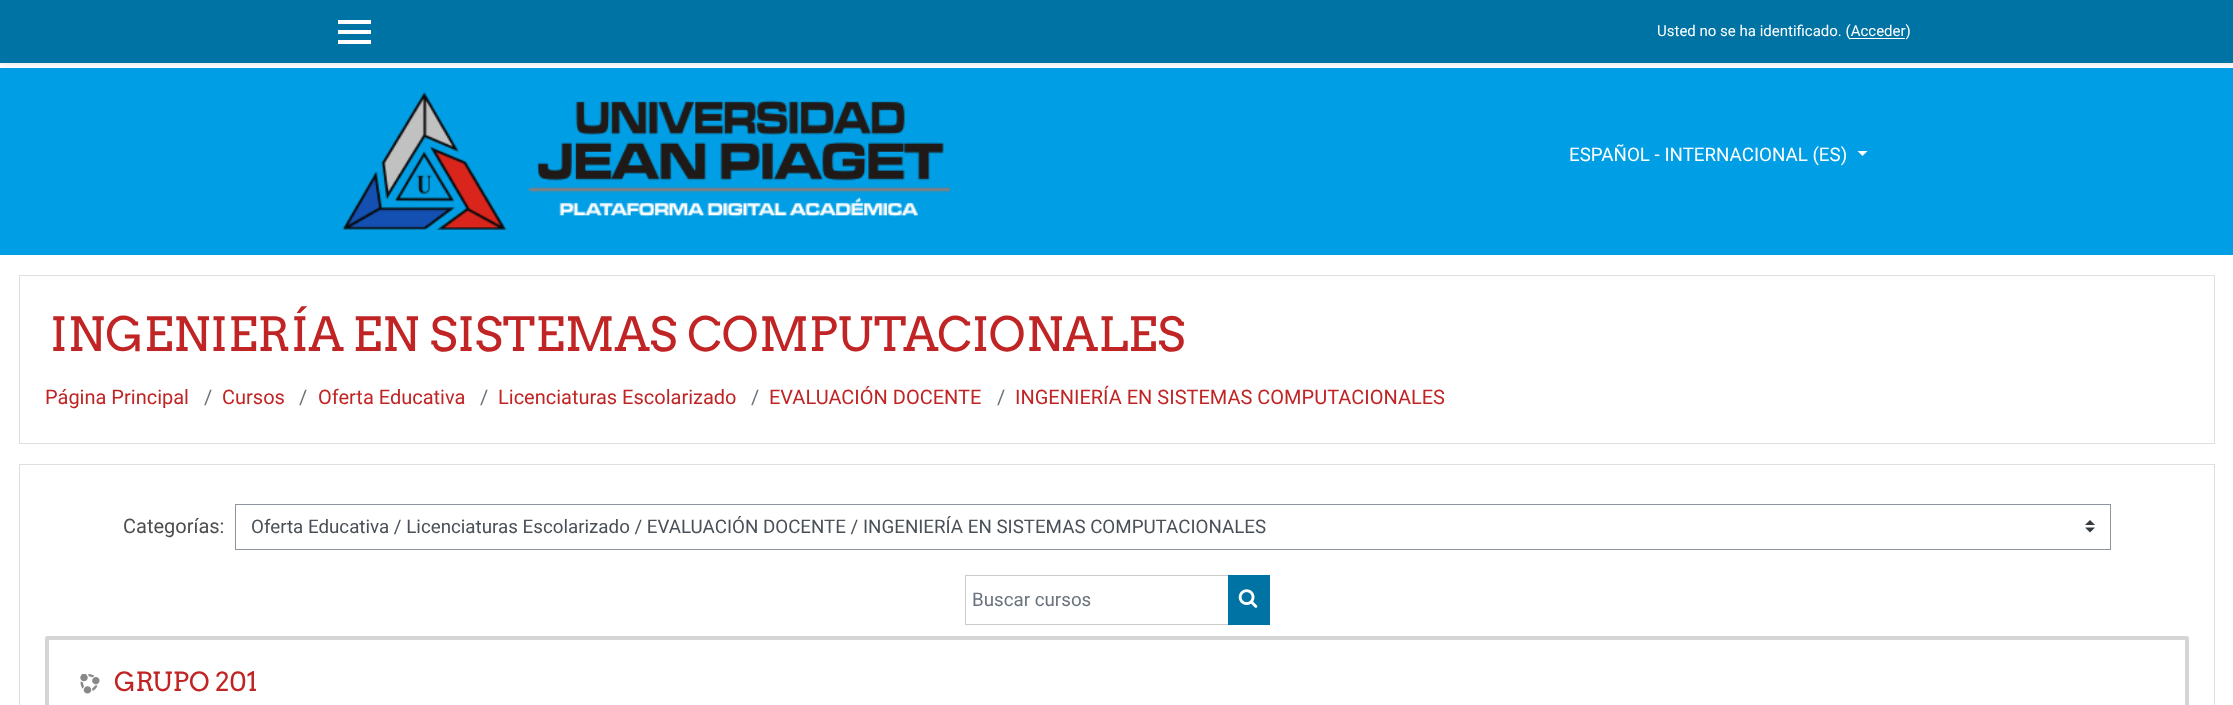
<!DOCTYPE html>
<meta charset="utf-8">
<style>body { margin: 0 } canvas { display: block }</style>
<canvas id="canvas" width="2233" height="705"></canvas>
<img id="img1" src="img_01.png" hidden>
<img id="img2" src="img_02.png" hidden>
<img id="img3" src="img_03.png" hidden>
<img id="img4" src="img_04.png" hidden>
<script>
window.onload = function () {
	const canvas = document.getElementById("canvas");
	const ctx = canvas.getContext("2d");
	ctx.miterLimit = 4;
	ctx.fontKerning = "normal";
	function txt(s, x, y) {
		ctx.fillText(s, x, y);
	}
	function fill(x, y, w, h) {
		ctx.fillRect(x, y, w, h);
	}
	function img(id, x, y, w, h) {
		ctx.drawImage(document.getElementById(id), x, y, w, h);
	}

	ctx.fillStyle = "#FFFFFF";
	fill(0, 0, 2233, 705);
	ctx.fillStyle = "#009FE5";
	fill(0, 68, 2233, 187);
	ctx.fillStyle = "rgba(0, 0, 0, 0.08)";
	ctx.filter = "blur(2.5px)";
	ctx.beginPath();
	ctx.rect(0, 3, 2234, 62);
	ctx.fill();
	ctx.filter = "none";
	ctx.fillStyle = "#0073A5";
	fill(0, 0, 2233, 63);
	ctx.fillStyle = "#FFFFFF";
	fill(338, 20, 33, 4);
	fill(338, 30, 33, 4);
	fill(338, 40, 33, 4);
	fill(1850, 38, 55, 1);
	img("img1", 342, 92, 608, 138);
	ctx.beginPath();
	ctx.moveTo(1857.5, 151);
	ctx.lineTo(1867.5, 151);
	ctx.lineTo(1862.5, 156);
	ctx.closePath();
	ctx.fill();
	ctx.strokeStyle = "#DFDFDF";
	ctx.strokeRect(19.5, 275.5, 2195, 168);
	ctx.strokeRect(19.5, 464.5, 2195, 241);
	img("img2", 2085, 520, 10, 13);
	ctx.strokeStyle = "#8F959E";
	ctx.strokeRect(235.5, 504.5, 1875, 45);
	ctx.strokeStyle = "#CBCBCB";
	ctx.strokeRect(965.5, 575.5, 263, 49);
	ctx.fillStyle = "#0073A5";
	fill(1228, 575, 42, 50);
	img("img3", 1238, 589, 20, 19);
	ctx.beginPath();
	ctx.roundRect(47, 638, 2140, 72, 0.5);
	ctx.strokeStyle = "#D5D5D5";
	ctx.lineWidth = 4;
	ctx.stroke();
	img("img4", 80, 674, 20, 20);
	ctx.font = "15px Roboto";
	ctx.fillStyle = "#FFFFFF";
	txt("Usted no se ha identificado. (Acceder)", 1657, 36);
	ctx.font = "18.75px Roboto";
	txt("ESPAÑOL - INTERNACIONAL (ES)", 1569, 161);
	ctx.font = "46.9px Arvo";
	ctx.fillStyle = "#C02424";
	txt("INGENIERÍA EN SISTEMAS COMPUTACIONALES", 50, 351);
	ctx.font = "20px Roboto";
	txt("Página Principal", 45, 404);
	ctx.fillStyle = "#6A737B";
	txt("/", 204, 404);
	ctx.fillStyle = "#C02424";
	txt("Cursos", 222, 404);
	ctx.fillStyle = "#6A737B";
	txt("/", 299, 404);
	ctx.fillStyle = "#C02424";
	txt("Oferta Educativa", 318, 404);
	ctx.fillStyle = "#6A737B";
	txt("/", 480, 404);
	ctx.fillStyle = "#C02424";
	txt("Licenciaturas Escolarizado", 498, 404);
	ctx.fillStyle = "#6A737B";
	txt("/", 751, 404);
	ctx.fillStyle = "#C02424";
	txt("EVALUACIÓN DOCENTE", 769, 404);
	ctx.fillStyle = "#6A737B";
	txt("/", 997, 404);
	ctx.fillStyle = "#C02424";
	txt("INGENIERÍA EN SISTEMAS COMPUTACIONALES", 1015, 404);
	ctx.fillStyle = "#4E4E4E";
	txt("Categorías:", 123, 533);
	ctx.font = "18.75px Roboto";
	ctx.fillStyle = "#495057";
	txt("Oferta Educativa / Licenciaturas Escolarizado / EVALUACIÓN DOCENTE / INGENIERÍA EN SISTEMAS COMPUTACIONALES", 251, 533);
	ctx.fillStyle = "#6A737B";
	txt("Buscar cursos", 972, 606);
	ctx.font = "26.25px Arvo";
	ctx.fillStyle = "#C02424";
	txt("GRUPO 201", 114, 691);
};
</script>
